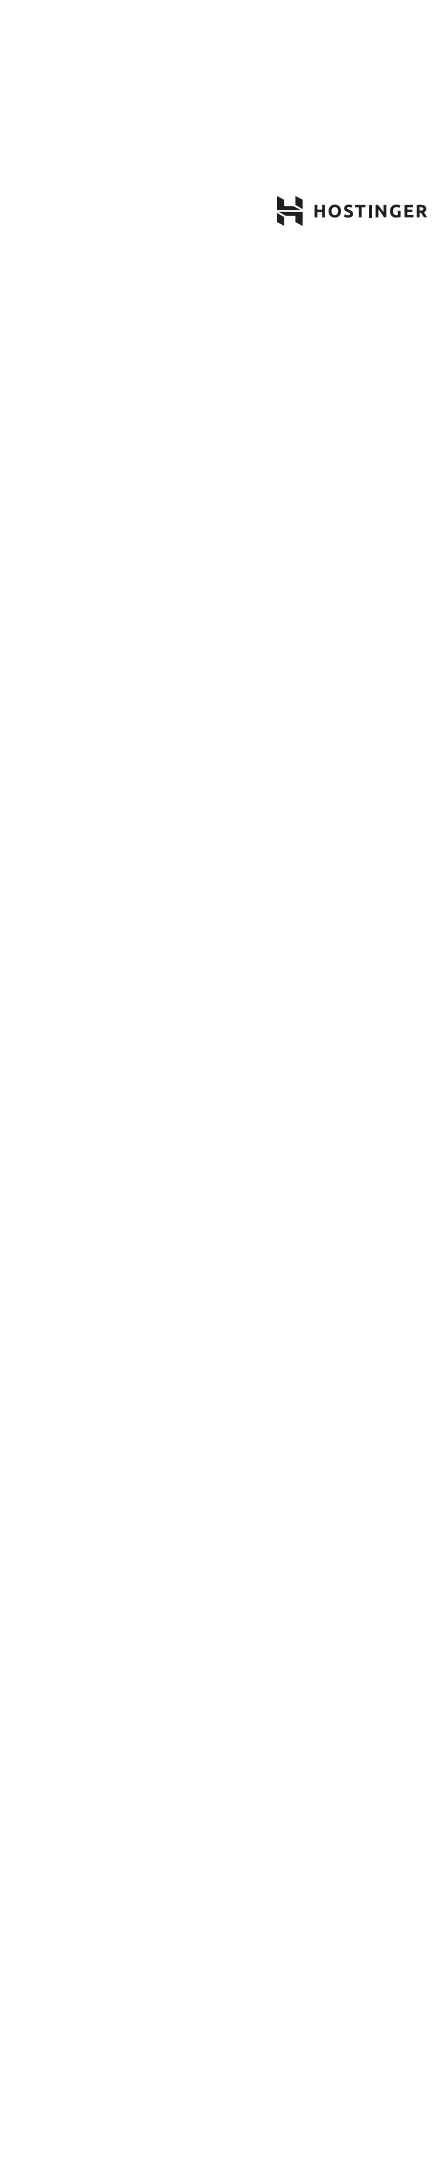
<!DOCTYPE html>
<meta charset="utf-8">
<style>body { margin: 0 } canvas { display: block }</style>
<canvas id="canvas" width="435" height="2167"></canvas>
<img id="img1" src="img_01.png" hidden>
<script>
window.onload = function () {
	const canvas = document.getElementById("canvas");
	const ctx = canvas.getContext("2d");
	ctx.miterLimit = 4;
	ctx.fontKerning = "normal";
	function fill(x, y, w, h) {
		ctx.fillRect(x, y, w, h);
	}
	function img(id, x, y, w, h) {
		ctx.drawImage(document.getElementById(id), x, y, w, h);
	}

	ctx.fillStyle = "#FFFFFF";
	fill(0, 0, 435, 2167);
	img("img1", 277, 196, 150, 30);
};
</script>
